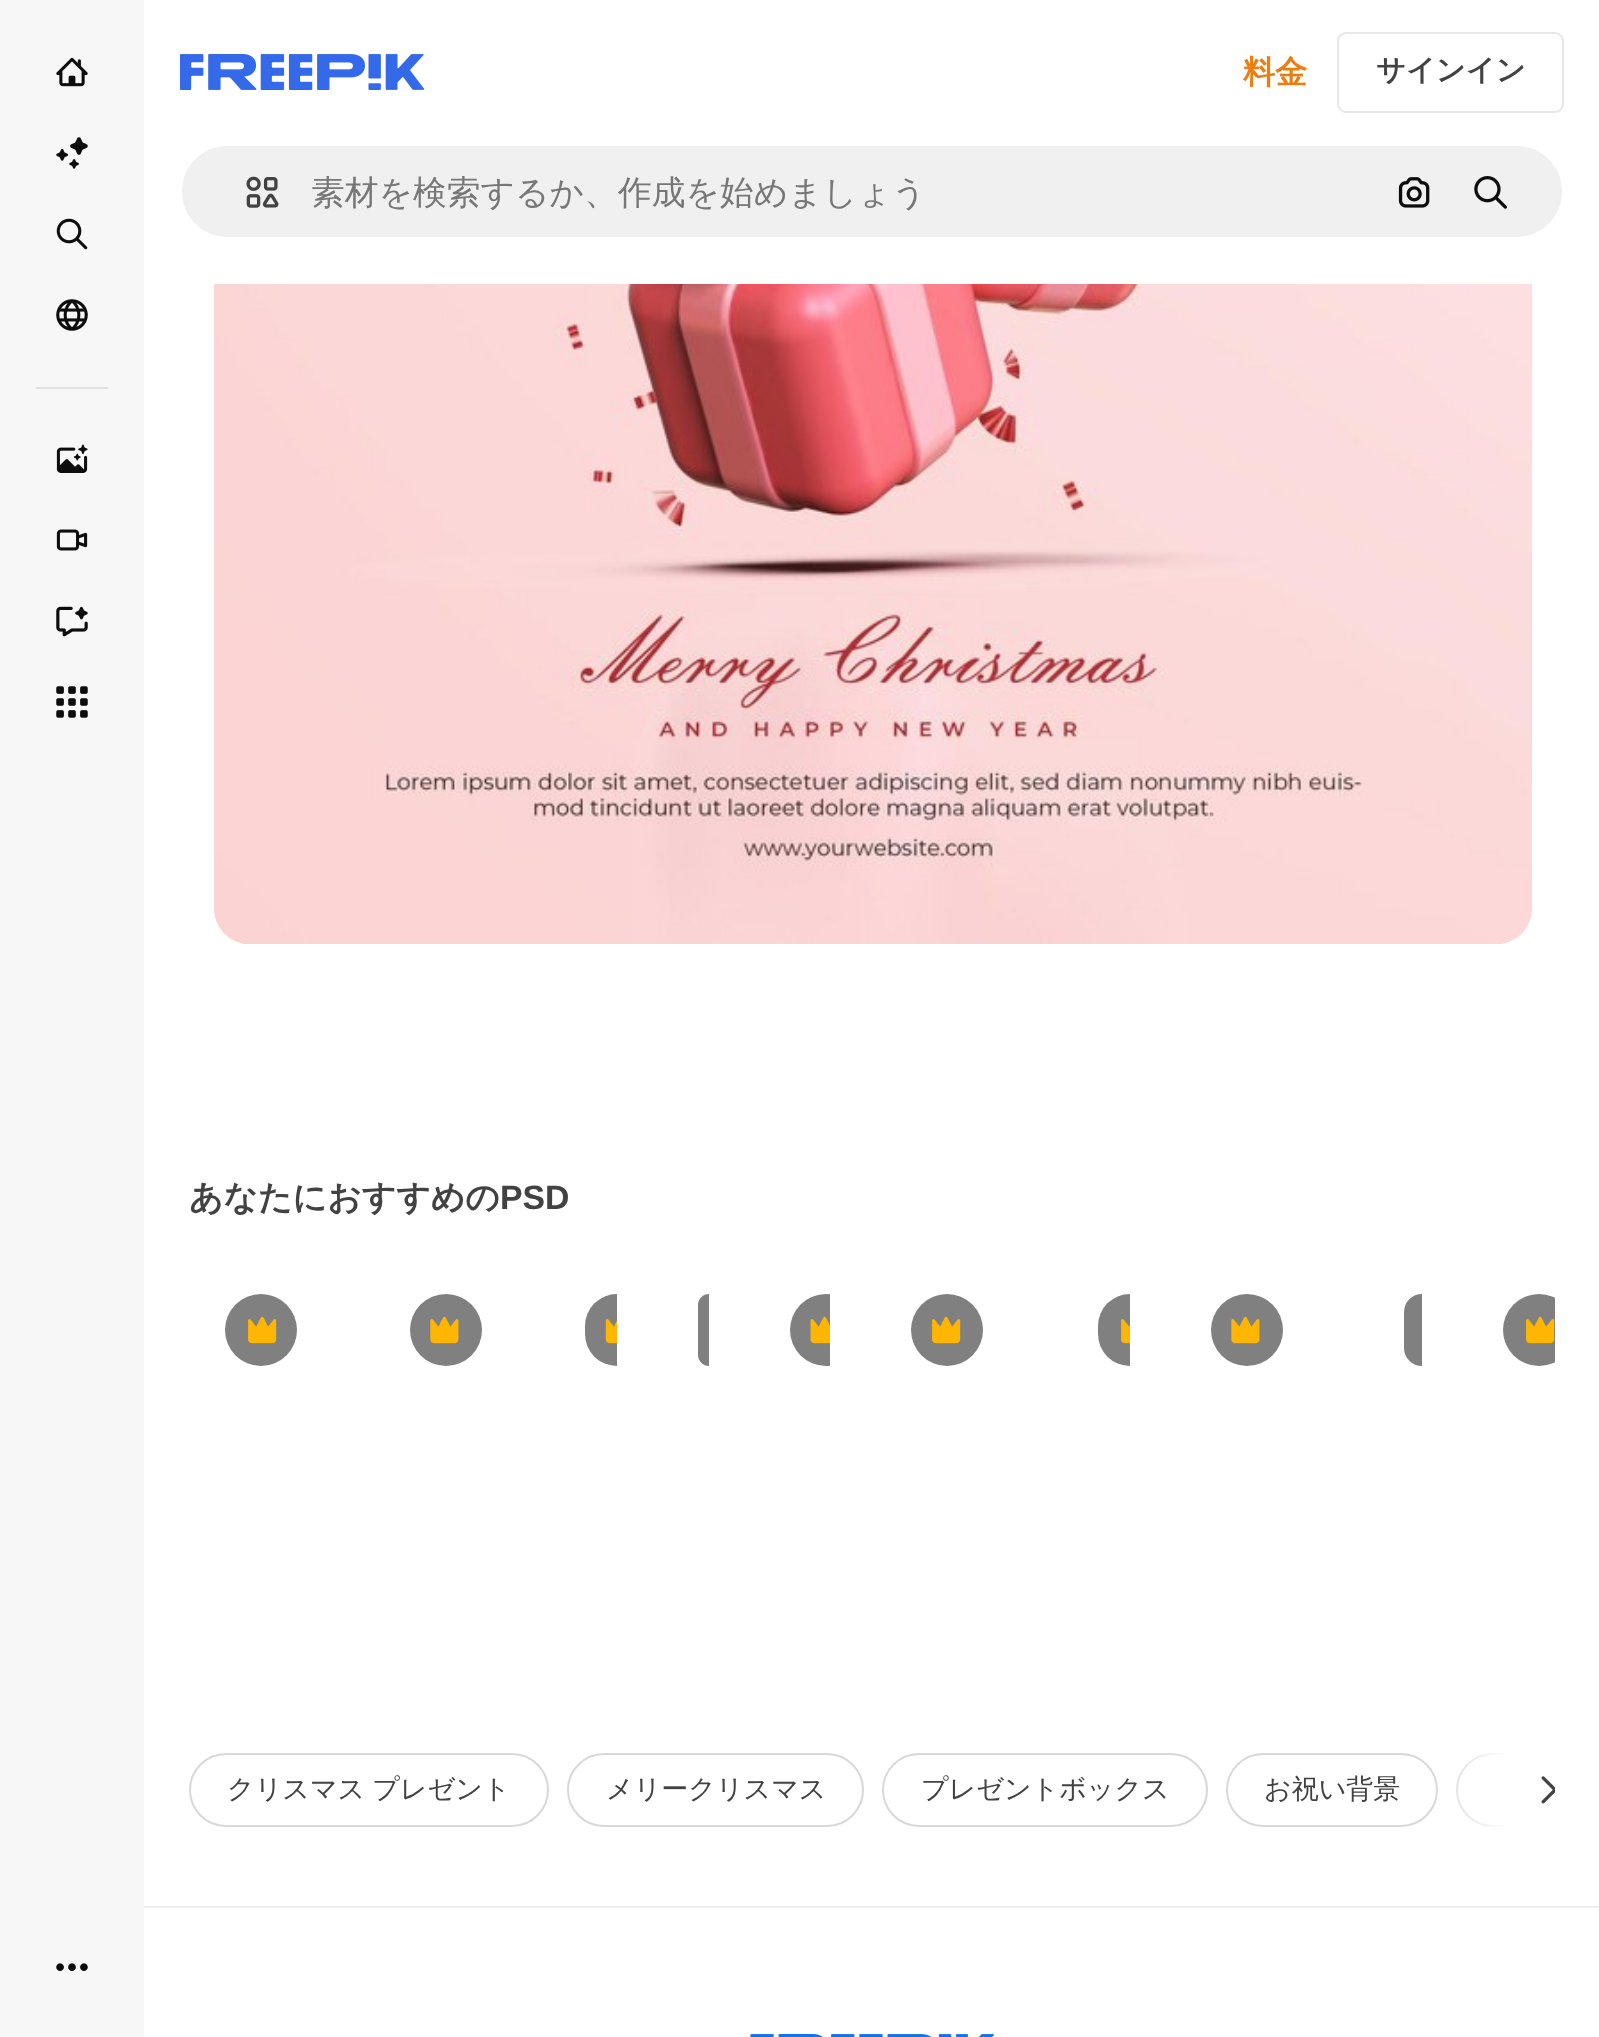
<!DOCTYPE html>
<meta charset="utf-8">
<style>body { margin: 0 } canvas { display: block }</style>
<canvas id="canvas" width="1599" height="2037"></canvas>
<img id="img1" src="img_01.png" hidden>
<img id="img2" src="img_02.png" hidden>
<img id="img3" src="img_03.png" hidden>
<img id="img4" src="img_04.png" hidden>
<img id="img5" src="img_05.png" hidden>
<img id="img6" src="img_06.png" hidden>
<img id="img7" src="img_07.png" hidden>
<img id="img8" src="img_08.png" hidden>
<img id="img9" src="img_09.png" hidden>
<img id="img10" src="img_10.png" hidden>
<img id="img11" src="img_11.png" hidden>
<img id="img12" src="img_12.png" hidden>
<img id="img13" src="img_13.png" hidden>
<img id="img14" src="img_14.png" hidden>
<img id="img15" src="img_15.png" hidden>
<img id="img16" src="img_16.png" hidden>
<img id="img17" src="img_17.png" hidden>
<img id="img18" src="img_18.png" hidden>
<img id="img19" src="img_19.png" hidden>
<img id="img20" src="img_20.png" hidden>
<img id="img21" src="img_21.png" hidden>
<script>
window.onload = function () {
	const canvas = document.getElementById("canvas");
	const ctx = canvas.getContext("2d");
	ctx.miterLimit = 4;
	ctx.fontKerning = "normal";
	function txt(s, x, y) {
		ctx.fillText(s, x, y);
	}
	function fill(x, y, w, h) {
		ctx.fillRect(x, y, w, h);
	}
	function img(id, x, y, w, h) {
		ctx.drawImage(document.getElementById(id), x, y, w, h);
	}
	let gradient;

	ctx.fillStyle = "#FFFFFF";
	fill(0, 0, 1599, 2037);
	ctx.fillStyle = "#F7F7F7";
	fill(0, 0, 144, 2037);
	img("img1", 56, 57, 32, 30);
	img("img2", 56, 137, 32, 32);
	img("img3", 56, 218, 32, 32);
	img("img4", 56, 299, 32, 32);
	ctx.fillStyle = "#E0E0E0";
	fill(36, 387, 72, 2);
	img("img5", 56, 444, 32, 29);
	img("img6", 56, 529, 32, 22);
	img("img7", 56, 606, 32, 31);
	img("img8", 56, 686, 32, 32);
	img("img9", 56, 1963, 32, 8);
	img("img10", 180, 54, 245, 36);
	ctx.beginPath();
	ctx.roundRect(1338, 33, 225, 79, 8);
	ctx.strokeStyle = "#E7E7E7";
	ctx.lineWidth = 2;
	ctx.stroke();
	ctx.fillStyle = "#F0F0F0";
	ctx.beginPath();
	ctx.roundRect(181, 145, 1382, 93, 46.5);
	ctx.fill();
	ctx.strokeStyle = "#FFFFFF";
	ctx.stroke();
	img("img11", 246, 176, 33, 32);
	img("img12", 1398, 177, 32, 31);
	img("img13", 1474, 176, 33, 33);
	img("img14", 214, 284, 1318, 660);
	ctx.fillStyle = "#808080";
	ctx.beginPath();
	ctx.arc(261, 1330, 36, 0, Math.PI * 2);
	ctx.fill();
	img("img15", 248, 1316, 29, 28);
	ctx.beginPath();
	ctx.arc(446, 1330, 36, 0, Math.PI * 2);
	ctx.fill();
	img("img16", 430, 1316, 29, 28);
	ctx.beginPath();
	ctx.roundRect(585, 1294, 32, 72, [36, 0, 0, 36]);
	ctx.fill();
	img("img17", 605, 1319, 12, 25);
	ctx.beginPath();
	ctx.roundRect(698, 1294, 11, 72, [36, 0, 0, 36]);
	ctx.fill();
	ctx.save();
	ctx.beginPath();
	ctx.roundRect(754, 1258, 76, 450, 36);
	ctx.clip();
	ctx.beginPath();
	ctx.arc(826, 1330, 36, 0, Math.PI * 2);
	ctx.fill();
	ctx.restore();
	img("img18", 810, 1316, 20, 28);
	ctx.beginPath();
	ctx.arc(947, 1330, 36, 0, Math.PI * 2);
	ctx.fill();
	img("img15", 932, 1316, 29, 28);
	ctx.beginPath();
	ctx.roundRect(1098, 1294, 32, 72, [36, 0, 0, 36]);
	ctx.fill();
	img("img19", 1121, 1319, 9, 25);
	ctx.beginPath();
	ctx.arc(1247, 1330, 36, 0, Math.PI * 2);
	ctx.fill();
	img("img16", 1231, 1316, 29, 28);
	ctx.beginPath();
	ctx.roundRect(1404, 1294, 18, 72, [36, 0, 0, 36]);
	ctx.fill();
	ctx.save();
	ctx.beginPath();
	ctx.roundRect(1467, 1258, 88, 450, 36);
	ctx.clip();
	ctx.beginPath();
	ctx.arc(1539, 1330, 36, 0, Math.PI * 2);
	ctx.fill();
	ctx.restore();
	img("img15", 1526, 1316, 29, 28);
	ctx.beginPath();
	ctx.roundRect(190, 1754, 358, 72, 36);
	ctx.strokeStyle = "#D8D8D8";
	ctx.stroke();
	ctx.beginPath();
	ctx.roundRect(568, 1754, 295, 72, 36);
	ctx.stroke();
	ctx.beginPath();
	ctx.roundRect(883, 1754, 324, 72, 36);
	ctx.stroke();
	ctx.beginPath();
	ctx.roundRect(1227, 1754, 210, 72, 36);
	ctx.stroke();
	ctx.save();
	ctx.beginPath();
	ctx.rect(189, 1753, 1366, 74);
	ctx.clip();
	ctx.beginPath();
	ctx.roundRect(1457, 1754, 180, 72, 36);
	ctx.stroke();
	ctx.restore();
	ctx.fillStyle = "#FFFFFF";
	fill(1510, 1753, 45, 74);
	gradient = ctx.createLinearGradient(1510, 1790, 1431, 1790);
	gradient.addColorStop(0, "#FFFFFF");
	gradient.addColorStop(1, "rgba(255, 255, 255, 0)");
	ctx.fillStyle = gradient;
	fill(1436, 1753, 74, 74);
	img("img20", 1541, 1776, 14, 28);
	ctx.fillStyle = "#F0F0F0";
	fill(144, 1906, 1455, 2);
	img("img21", 750, 2034, 244, 3);
	ctx.font = "bold 32px WenQuanYi Zen Hei";
	ctx.fillStyle = "#EA7E11";
	txt("料金", 1243, 83);
	ctx.font = "bold 29.25px WenQuanYi Zen Hei";
	ctx.fillStyle = "#424242";
	txt("サインイン", 1376, 80);
	ctx.font = "500 33.75px WenQuanYi Zen Hei";
	ctx.fillStyle = "#777777";
	txt("素材を検索するか、作成を始めましょう", 311, 204);
	ctx.font = "bold 33.75px WenQuanYi Zen Hei";
	ctx.fillStyle = "#424242";
	txt("あなたにおすすめの", 189, 1209);
	ctx.font = "bold 33.75px Liberation Sans";
	txt("PSD", 500, 1209);
	ctx.wordSpacing = "-1px";
	ctx.font = "500 27px WenQuanYi Zen Hei";
	txt("クリスマス プレゼント", 227, 1798);
	ctx.wordSpacing = "0px";
	txt("メリークリスマス", 606, 1798);
	txt("プレゼントボックス", 921, 1798);
	txt("お祝い背景", 1264, 1798);
};
</script>
